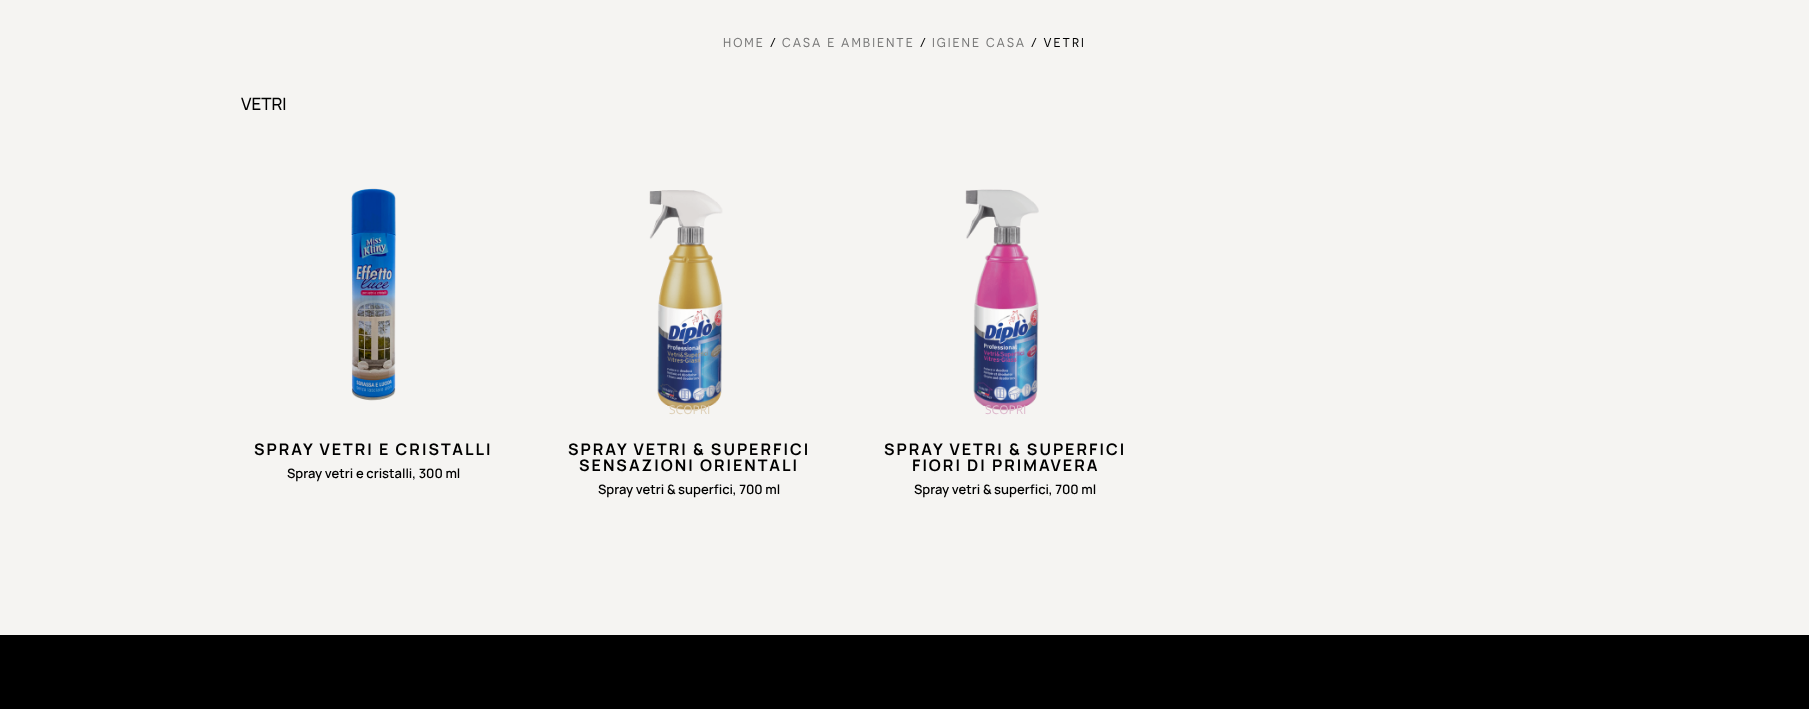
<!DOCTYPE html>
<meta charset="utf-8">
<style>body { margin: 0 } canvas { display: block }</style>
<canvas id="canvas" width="1809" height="709"></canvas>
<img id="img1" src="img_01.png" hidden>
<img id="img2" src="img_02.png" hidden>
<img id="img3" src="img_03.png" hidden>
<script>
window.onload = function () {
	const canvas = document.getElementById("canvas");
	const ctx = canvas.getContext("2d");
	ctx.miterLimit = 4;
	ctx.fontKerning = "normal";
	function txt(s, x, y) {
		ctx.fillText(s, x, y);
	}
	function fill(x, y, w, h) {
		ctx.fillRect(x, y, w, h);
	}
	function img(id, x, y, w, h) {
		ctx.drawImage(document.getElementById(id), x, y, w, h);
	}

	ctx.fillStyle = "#F5F4F2";
	fill(0, 0, 1809, 709);
	img("img1", 351, 188, 45, 213);
	img("img2", 649, 190, 74, 221);
	img("img3", 965, 189, 74, 222);
	ctx.fillStyle = "#000000";
	fill(0, 635, 1809, 74);
	ctx.letterSpacing = "2px";
	ctx.font = "12.9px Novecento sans";
	ctx.fillStyle = "#767676";
	txt("HOME", 723, 47);
	ctx.fillStyle = "#000000";
	txt("/", 770, 47);
	ctx.fillStyle = "#767676";
	txt("CASA E AMBIENTE", 782, 47);
	ctx.fillStyle = "#000000";
	txt("/", 920, 47);
	ctx.fillStyle = "#767676";
	txt("IGIENE CASA", 932, 47);
	ctx.fillStyle = "#000000";
	txt("/ VETRI", 1031, 47);
	ctx.letterSpacing = "0px";
	ctx.font = "200 17px Manrope";
	txt("VETRI", 241, 110);
	ctx.letterSpacing = "2px";
	ctx.font = "200 16px 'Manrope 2'";
	txt("SPRAY VETRI E CRISTALLI", 254, 455);
	ctx.letterSpacing = "0px";
	ctx.font = "200 13px 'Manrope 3'";
	txt("Spray vetri e cristalli, 300 ml", 287, 478);
	ctx.font = "12px Open Sans";
	ctx.fillStyle = "#DED0B7";
	txt("SCOPRI", 669, 414);
	ctx.letterSpacing = "2px";
	ctx.font = "200 16px 'Manrope 2'";
	ctx.fillStyle = "#000000";
	txt("SPRAY VETRI & SUPERFICI", 568, 455);
	txt("SENSAZIONI ORIENTALI", 579, 471);
	ctx.letterSpacing = "0px";
	ctx.font = "200 13px 'Manrope 3'";
	txt("Spray vetri & superfici, 700 ml", 598, 494);
	ctx.font = "12px Open Sans";
	ctx.fillStyle = "#DEBBCE";
	txt("SCOPRI", 985, 414);
	ctx.letterSpacing = "2px";
	ctx.font = "200 16px 'Manrope 2'";
	ctx.fillStyle = "#000000";
	txt("SPRAY VETRI & SUPERFICI", 884, 455);
	txt("FIORI DI PRIMAVERA", 912, 471);
	ctx.letterSpacing = "0px";
	ctx.font = "200 13px 'Manrope 3'";
	txt("Spray vetri & superfici, 700 ml", 914, 494);
};
</script>
